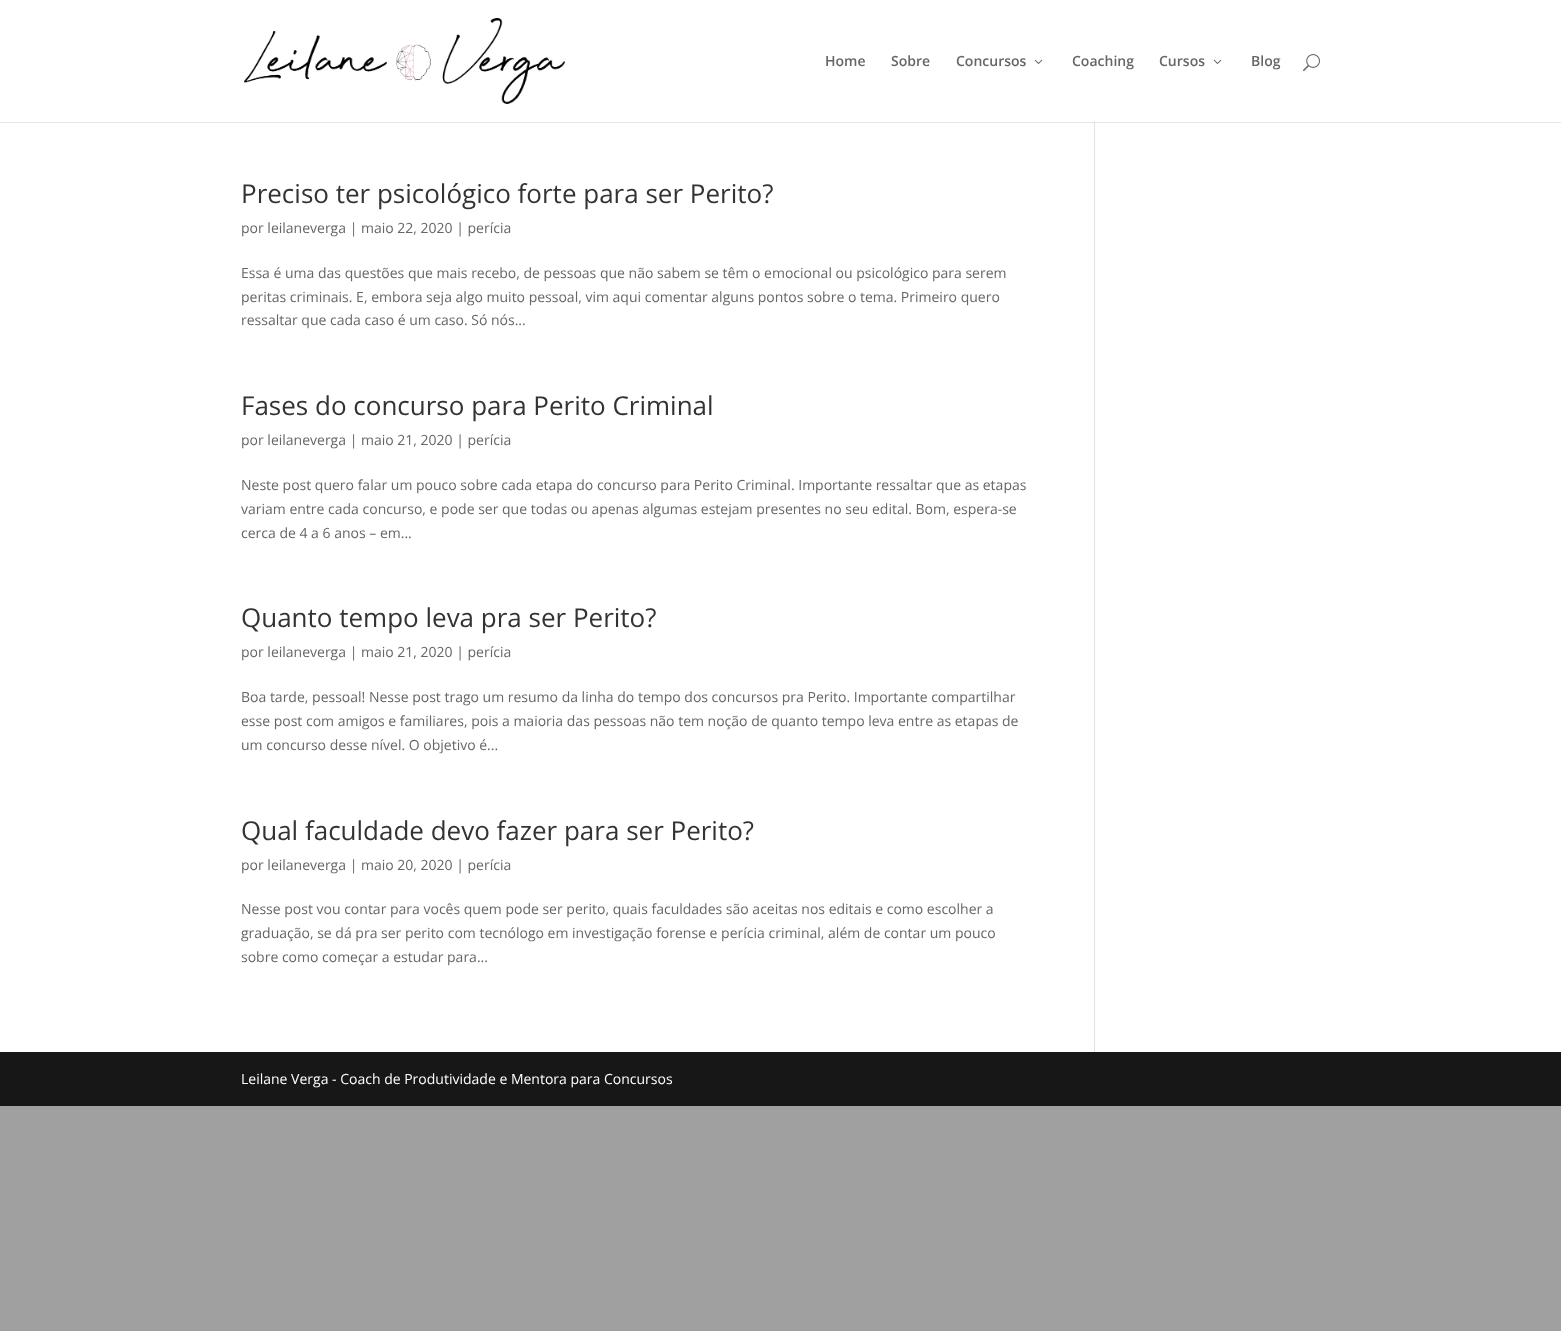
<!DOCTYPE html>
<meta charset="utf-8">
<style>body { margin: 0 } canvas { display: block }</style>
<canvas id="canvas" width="1561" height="1331"></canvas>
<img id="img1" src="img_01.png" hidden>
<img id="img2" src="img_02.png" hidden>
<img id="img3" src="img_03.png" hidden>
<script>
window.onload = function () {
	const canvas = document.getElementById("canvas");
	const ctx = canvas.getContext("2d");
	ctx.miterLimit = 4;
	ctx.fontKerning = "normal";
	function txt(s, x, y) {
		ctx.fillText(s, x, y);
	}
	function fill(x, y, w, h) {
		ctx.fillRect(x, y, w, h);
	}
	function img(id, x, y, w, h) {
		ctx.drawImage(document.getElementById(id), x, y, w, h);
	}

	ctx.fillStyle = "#A0A0A0";
	fill(0, 0, 1561, 1331);
	ctx.fillStyle = "#FFFFFF";
	fill(0, 0, 1561, 122);
	img("img1", 244, 18, 321, 86);
	img("img2", 1034, 59, 9, 5);
	img("img2", 1213, 59, 9, 5);
	img("img3", 1303, 54, 17, 18);
	fill(0, 123, 1561, 929);
	ctx.fillStyle = "#E6E6E6";
	fill(0, 122, 1561, 1);
	ctx.fillStyle = "#E2E2E2";
	fill(1094, 122, 1, 930);
	ctx.fillStyle = "#CBCBCB";
	fill(1094, 122, 1, 1);
	ctx.fillStyle = "#171717";
	fill(0, 1052, 1561, 54);
	ctx.font = "600 14px Open Sans";
	ctx.fillStyle = "#666666";
	txt("Home", 825, 66);
	txt("Sobre", 891, 66);
	txt("Concursos", 956, 66);
	txt("Coaching", 1072, 66);
	txt("Cursos", 1159, 66);
	txt("Blog", 1251, 66);
	ctx.font = "26px Open Sans";
	ctx.fillStyle = "#333333";
	txt("Preciso ter psicológico forte para ser Perito?", 241, 203);
	ctx.font = "14px Open Sans";
	ctx.fillStyle = "#666666";
	txt("por leilaneverga | maio 22, 2020 | perícia", 241, 233);
	txt("Essa é uma das questões que mais recebo, de pessoas que não sabem se têm o emocional ou psicológico para serem", 241, 278);
	txt("peritas criminais. E, embora seja algo muito pessoal, vim aqui comentar alguns pontos sobre o tema. Primeiro quero", 241, 302);
	txt("ressaltar que cada caso é um caso. Só nós...", 241, 325);
	ctx.font = "26px Open Sans";
	ctx.fillStyle = "#333333";
	txt("Fases do concurso para Perito Criminal", 241, 415);
	ctx.font = "14px Open Sans";
	ctx.fillStyle = "#666666";
	txt("por leilaneverga | maio 21, 2020 | perícia", 241, 445);
	txt("Neste post quero falar um pouco sobre cada etapa do concurso para Perito Criminal. Importante ressaltar que as etapas", 241, 490);
	txt("variam entre cada concurso, e pode ser que todas ou apenas algumas estejam presentes no seu edital. Bom, espera-se", 241, 514);
	txt("cerca de 4 a 6 anos – em...", 241, 538);
	ctx.font = "26px Open Sans";
	ctx.fillStyle = "#333333";
	txt("Quanto tempo leva pra ser Perito?", 241, 627);
	ctx.font = "14px Open Sans";
	ctx.fillStyle = "#666666";
	txt("por leilaneverga | maio 21, 2020 | perícia", 241, 657);
	txt("Boa tarde, pessoal! Nesse post trago um resumo da linha do tempo dos concursos pra Perito. Importante compartilhar", 241, 702);
	txt("esse post com amigos e familiares, pois a maioria das pessoas não tem noção de quanto tempo leva entre as etapas de", 241, 726);
	txt("um concurso desse nível. O objetivo é...", 241, 750);
	ctx.font = "26px Open Sans";
	ctx.fillStyle = "#333333";
	txt("Qual faculdade devo fazer para ser Perito?", 241, 840);
	ctx.font = "14px Open Sans";
	ctx.fillStyle = "#666666";
	txt("por leilaneverga | maio 20, 2020 | perícia", 241, 870);
	txt("Nesse post vou contar para vocês quem pode ser perito, quais faculdades são aceitas nos editais e como escolher a", 241, 914);
	txt("graduação, se dá pra ser perito com tecnólogo em investigação forense e perícia criminal, além de contar um pouco", 241, 938);
	txt("sobre como começar a estudar para...", 241, 962);
	ctx.fillStyle = "#FFFFFF";
	txt("Leilane Verga - Coach de Produtividade e Mentora para Concursos", 241, 1084);
};
</script>
